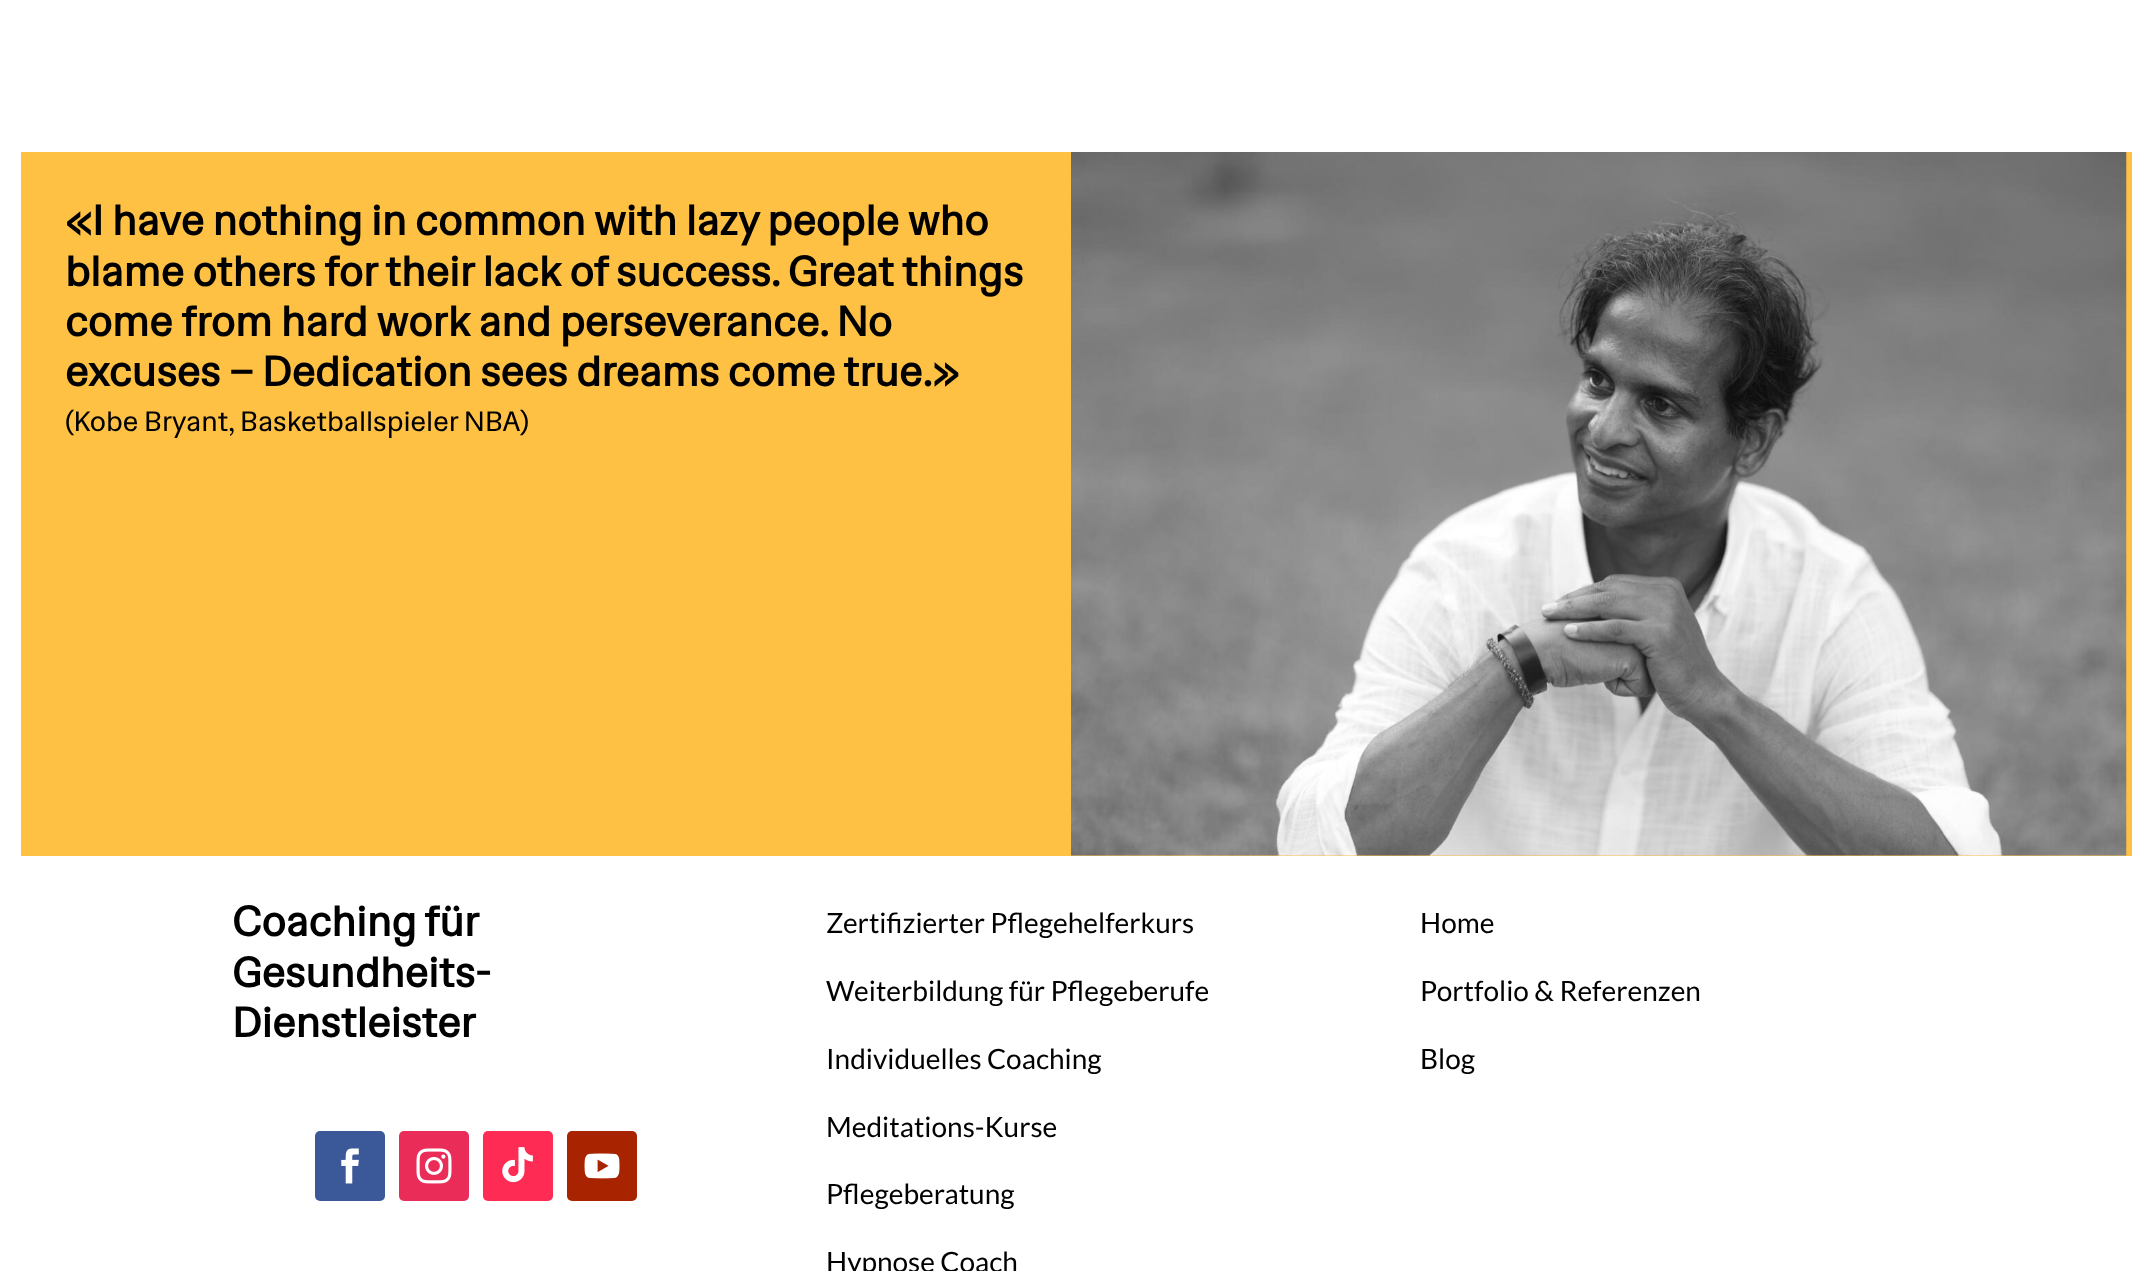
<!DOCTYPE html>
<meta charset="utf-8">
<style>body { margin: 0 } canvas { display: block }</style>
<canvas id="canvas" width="2152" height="1271"></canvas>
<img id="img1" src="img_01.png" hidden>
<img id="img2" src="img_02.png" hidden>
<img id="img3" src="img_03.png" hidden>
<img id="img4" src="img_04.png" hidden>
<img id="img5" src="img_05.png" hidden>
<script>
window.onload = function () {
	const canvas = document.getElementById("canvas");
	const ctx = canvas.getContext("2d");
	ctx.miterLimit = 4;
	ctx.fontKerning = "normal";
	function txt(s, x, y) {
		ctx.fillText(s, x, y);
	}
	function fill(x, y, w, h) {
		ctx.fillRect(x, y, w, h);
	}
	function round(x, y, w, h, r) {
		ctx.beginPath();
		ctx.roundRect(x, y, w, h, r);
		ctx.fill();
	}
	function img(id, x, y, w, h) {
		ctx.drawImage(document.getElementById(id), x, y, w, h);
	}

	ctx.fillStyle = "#FFFFFF";
	fill(0, 0, 2152, 1271);
	ctx.fillStyle = "#FEC144";
	fill(21, 152, 2111, 704);
	img("img1", 1071, 152, 1056, 704);
	ctx.fillStyle = "#3B5998";
	round(315, 1131, 70, 70, 5);
	img("img2", 341, 1148, 18, 36);
	ctx.fillStyle = "#EA2C59";
	round(399, 1131, 70, 70, 5);
	img("img3", 416, 1148, 36, 36);
	ctx.fillStyle = "#FE2C55";
	round(483, 1131, 70, 70, 5);
	img("img4", 502, 1147, 31, 36);
	ctx.fillStyle = "#A82400";
	round(567, 1131, 70, 70, 5);
	img("img5", 584, 1153, 36, 26);
	ctx.font = "bold 42px Hedvig Letters Sans";
	ctx.fillStyle = "#000000";
	txt("«I have nothing in common with lazy people who", 65, 235);
	txt("blame others for their lack of success. Great things", 65, 286);
	txt("come from hard work and perseverance. No", 65, 336);
	txt("excuses – Dedication sees dreams come true.»", 65, 386);
	ctx.font = "28px Hedvig Letters Sans";
	txt("(Kobe Bryant, Basketballspieler NBA)", 65, 431);
	ctx.wordSpacing = "-1px";
	ctx.font = "bold 42px Hedvig Letters Sans";
	txt("Coaching für", 232, 936);
	ctx.wordSpacing = "0px";
	txt("Gesundheits-", 232, 987);
	txt("Dienstleister", 232, 1037);
	ctx.font = "28px Lato";
	txt("Zertifizierter Pflegehelferkurs", 826, 933);
	txt("Weiterbildung für Pflegeberufe", 826, 1001);
	txt("Individuelles Coaching", 826, 1069);
	txt("Meditations-Kurse", 826, 1137);
	txt("Pflegeberatung", 826, 1204);
	txt("Hypnose Coach", 826, 1272);
	txt("Home", 1420, 933);
	txt("Portfolio & Referenzen", 1420, 1001);
	txt("Blog", 1420, 1069);
};
</script>
